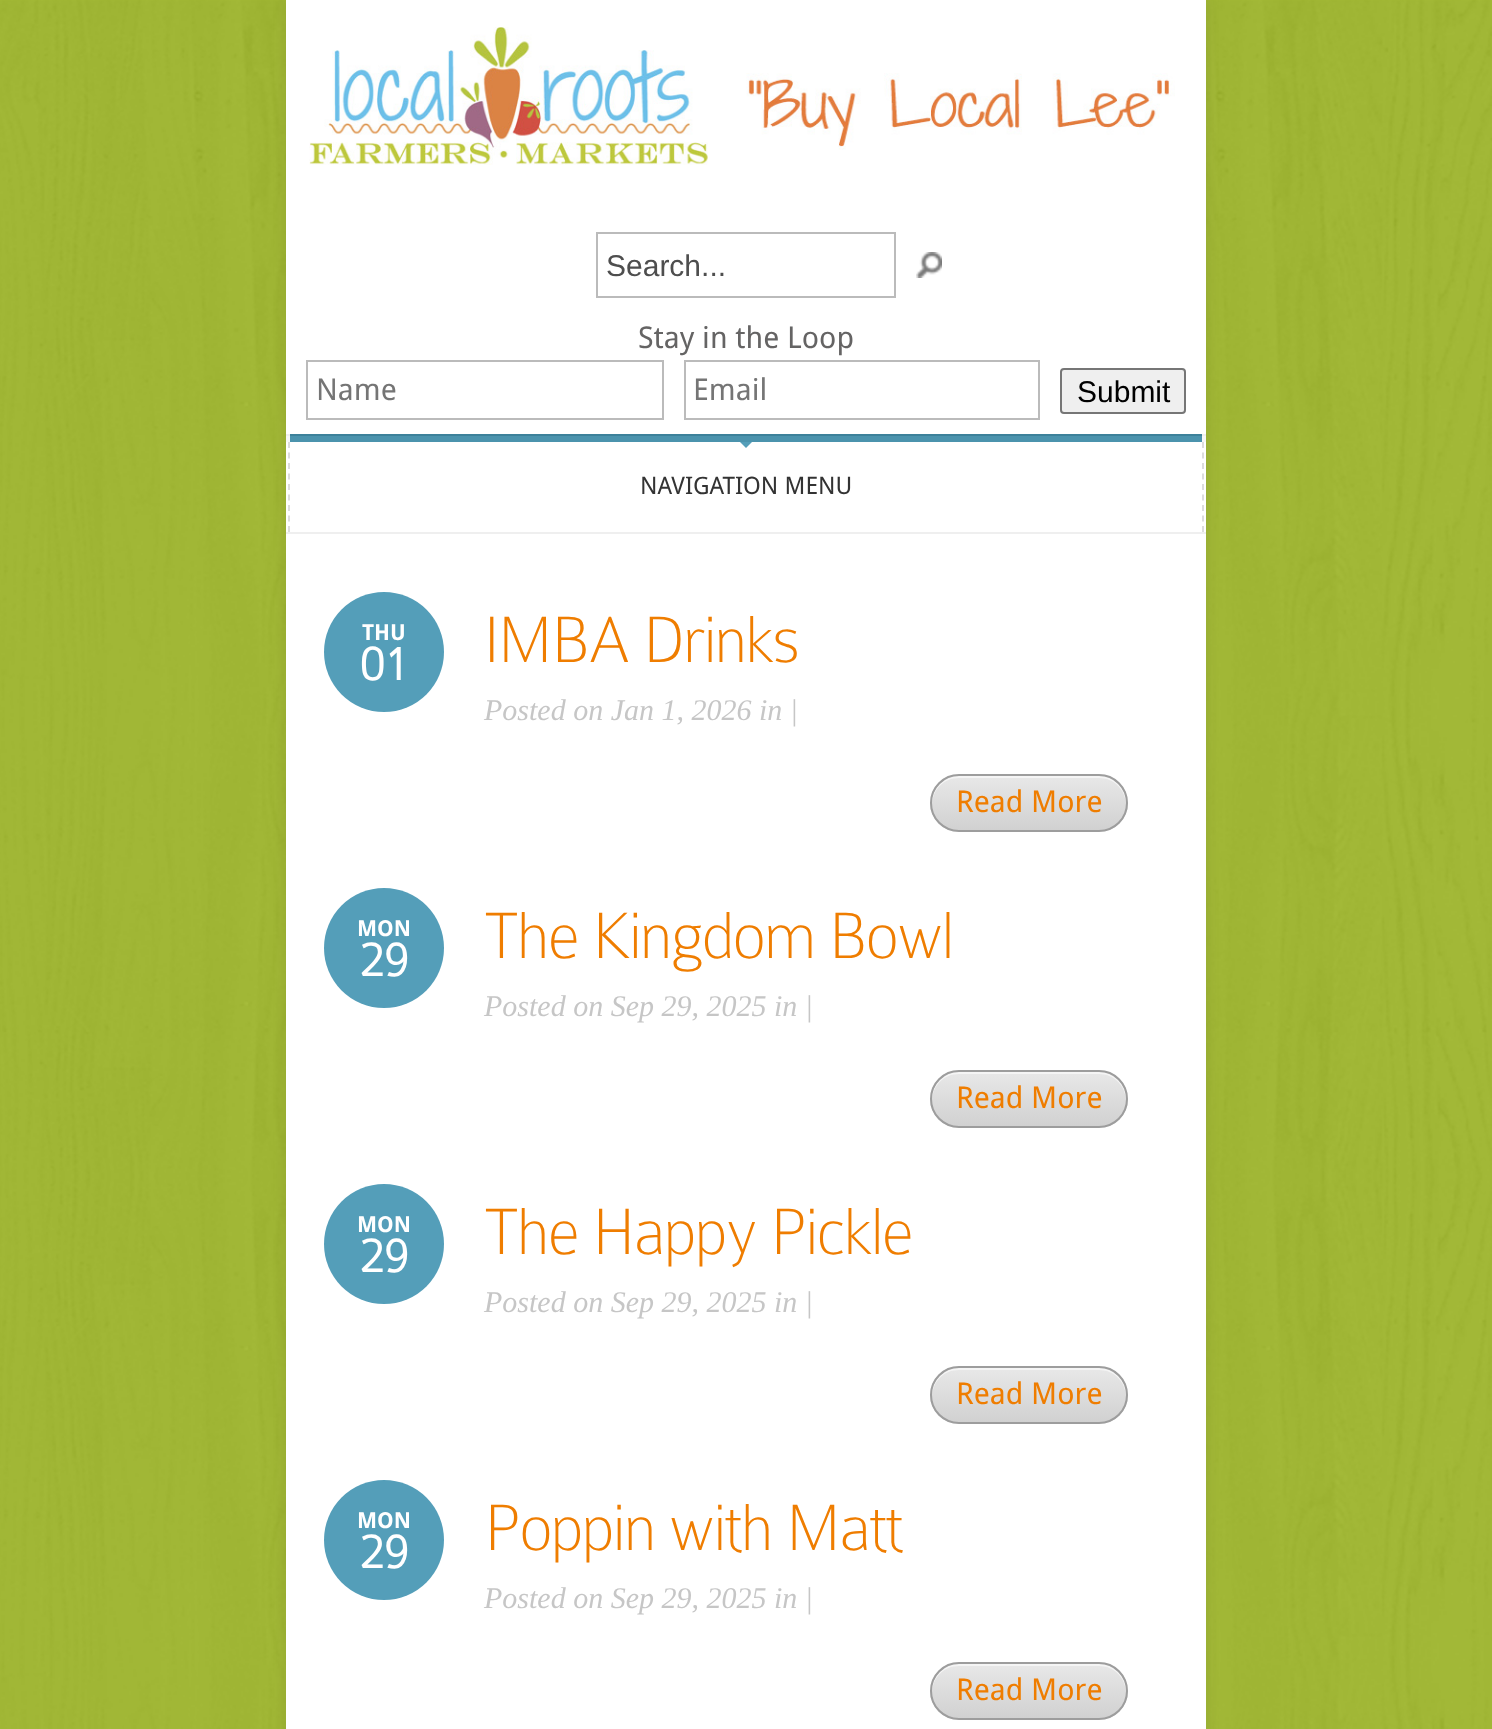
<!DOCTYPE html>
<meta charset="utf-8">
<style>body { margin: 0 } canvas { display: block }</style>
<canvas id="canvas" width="1492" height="1729"></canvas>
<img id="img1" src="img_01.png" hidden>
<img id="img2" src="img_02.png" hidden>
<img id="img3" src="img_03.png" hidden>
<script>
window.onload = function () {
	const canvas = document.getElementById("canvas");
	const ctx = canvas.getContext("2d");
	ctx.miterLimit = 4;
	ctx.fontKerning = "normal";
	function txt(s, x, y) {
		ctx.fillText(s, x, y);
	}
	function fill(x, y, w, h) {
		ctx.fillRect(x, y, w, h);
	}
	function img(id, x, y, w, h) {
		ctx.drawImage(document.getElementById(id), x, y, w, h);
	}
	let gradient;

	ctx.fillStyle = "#D1F51E";
	fill(0, 0, 1492, 1729);
	img("img1", 0, 0, 1492, 1729);
	ctx.fillStyle = "rgba(0, 0, 0, 0.08)";
	ctx.filter = "blur(7px)";
	ctx.beginPath();
	ctx.rect(286, 0, 920, 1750);
	ctx.fill();
	ctx.filter = "none";
	ctx.fillStyle = "#FFFFFF";
	fill(286, 0, 920, 532);
	ctx.fillStyle = "#EFEFEF";
	fill(286, 434, 920, 2);
	img("img2", 309, 27, 866, 138);
	ctx.strokeStyle = "#BBBBBB";
	ctx.lineWidth = 2;
	ctx.strokeRect(597, 233, 298, 64);
	img("img3", 916, 252, 26, 26);
	ctx.strokeRect(307, 361, 356, 58);
	ctx.strokeRect(685, 361, 354, 58);
	ctx.beginPath();
	ctx.roundRect(1061, 369, 124, 44, 3);
	ctx.fill();
	ctx.strokeStyle = "#767676";
	ctx.stroke();
	ctx.fillStyle = "#F7F7F7";
	fill(286, 436, 920, 6);
	ctx.fillStyle = "#EFEFEF";
	fill(286, 532, 920, 2);
	ctx.beginPath();
	ctx.moveTo(1203, 442);
	ctx.lineTo(1203, 532);
	ctx.strokeStyle = "#DCDCDC";
	ctx.setLineDash([6, 4.5]);
	ctx.stroke();
	ctx.beginPath();
	ctx.moveTo(289, 442);
	ctx.lineTo(289, 532);
	ctx.stroke();
	ctx.fillStyle = "#4B93AD";
	fill(290, 436, 912, 6);
	ctx.fillStyle = "#3C819A";
	fill(290, 434, 912, 2);
	ctx.fillStyle = "#549EB9";
	ctx.beginPath();
	ctx.moveTo(740, 442);
	ctx.lineTo(752, 442);
	ctx.lineTo(746, 448);
	ctx.closePath();
	ctx.fill();
	ctx.fillStyle = "#FFFFFF";
	fill(286, 534, 920, 1195);
	ctx.fillStyle = "#549EB9";
	ctx.beginPath();
	ctx.arc(384, 652, 60, 0, Math.PI * 2);
	ctx.fill();
	ctx.save();
	ctx.beginPath();
	ctx.roundRect(930, 774, 198, 58, 29);
	ctx.clip();
	gradient = ctx.createLinearGradient(1029, 776, 1029, 830);
	gradient.addColorStop(0, "#E8E8E8");
	gradient.addColorStop(1, "#D1D1D1");
	ctx.fillStyle = gradient;
	fill(930, 776, 198, 54);
	ctx.restore();
	ctx.fillStyle = "#F5F5F5";
	ctx.beginPath();
	ctx.moveTo(959, 778);
	ctx.lineTo(1099, 778);
	ctx.bezierCurveTo(1114, 778, 1125, 789, 1126, 804);
	ctx.lineTo(1126, 803);
	ctx.bezierCurveTo(1126, 788, 1114, 776, 1099, 776);
	ctx.lineTo(959, 776);
	ctx.bezierCurveTo(944, 776, 932, 788, 932, 803);
	ctx.lineTo(932, 804);
	ctx.bezierCurveTo(933, 789, 944, 778, 959, 778);
	ctx.closePath();
	ctx.fill();
	ctx.beginPath();
	ctx.roundRect(931, 775, 196, 56, 28);
	ctx.strokeStyle = "#9D9D9D";
	ctx.setLineDash([]);
	ctx.stroke();
	ctx.fillStyle = "#549EB9";
	ctx.beginPath();
	ctx.arc(384, 948, 60, 0, Math.PI * 2);
	ctx.fill();
	ctx.save();
	ctx.beginPath();
	ctx.roundRect(930, 1070, 198, 58, 29);
	ctx.clip();
	gradient = ctx.createLinearGradient(1029, 1072, 1029, 1126);
	gradient.addColorStop(0, "#E8E8E8");
	gradient.addColorStop(1, "#D1D1D1");
	ctx.fillStyle = gradient;
	fill(930, 1072, 198, 54);
	ctx.restore();
	ctx.fillStyle = "#F5F5F5";
	ctx.beginPath();
	ctx.moveTo(959, 1074);
	ctx.lineTo(1099, 1074);
	ctx.bezierCurveTo(1114, 1074, 1125, 1085, 1126, 1100);
	ctx.lineTo(1126, 1099);
	ctx.bezierCurveTo(1126, 1084, 1114, 1072, 1099, 1072);
	ctx.lineTo(959, 1072);
	ctx.bezierCurveTo(944, 1072, 932, 1084, 932, 1099);
	ctx.lineTo(932, 1100);
	ctx.bezierCurveTo(933, 1085, 944, 1074, 959, 1074);
	ctx.closePath();
	ctx.fill();
	ctx.beginPath();
	ctx.roundRect(931, 1071, 196, 56, 28);
	ctx.stroke();
	ctx.fillStyle = "#549EB9";
	ctx.beginPath();
	ctx.arc(384, 1244, 60, 0, Math.PI * 2);
	ctx.fill();
	ctx.save();
	ctx.beginPath();
	ctx.roundRect(930, 1366, 198, 58, 29);
	ctx.clip();
	gradient = ctx.createLinearGradient(1029, 1368, 1029, 1422);
	gradient.addColorStop(0, "#E8E8E8");
	gradient.addColorStop(1, "#D1D1D1");
	ctx.fillStyle = gradient;
	fill(930, 1368, 198, 54);
	ctx.restore();
	ctx.fillStyle = "#F5F5F5";
	ctx.beginPath();
	ctx.moveTo(959, 1370);
	ctx.lineTo(1099, 1370);
	ctx.bezierCurveTo(1114, 1370, 1125, 1381, 1126, 1396);
	ctx.lineTo(1126, 1395);
	ctx.bezierCurveTo(1126, 1380, 1114, 1368, 1099, 1368);
	ctx.lineTo(959, 1368);
	ctx.bezierCurveTo(944, 1368, 932, 1380, 932, 1395);
	ctx.lineTo(932, 1396);
	ctx.bezierCurveTo(933, 1381, 944, 1370, 959, 1370);
	ctx.closePath();
	ctx.fill();
	ctx.beginPath();
	ctx.roundRect(931, 1367, 196, 56, 28);
	ctx.stroke();
	ctx.fillStyle = "#549EB9";
	ctx.beginPath();
	ctx.arc(384, 1540, 60, 0, Math.PI * 2);
	ctx.fill();
	ctx.save();
	ctx.beginPath();
	ctx.roundRect(930, 1662, 198, 58, 29);
	ctx.clip();
	gradient = ctx.createLinearGradient(1029, 1664, 1029, 1718);
	gradient.addColorStop(0, "#E8E8E8");
	gradient.addColorStop(1, "#D1D1D1");
	ctx.fillStyle = gradient;
	fill(930, 1664, 198, 54);
	ctx.restore();
	ctx.fillStyle = "#F5F5F5";
	ctx.beginPath();
	ctx.moveTo(959, 1666);
	ctx.lineTo(1099, 1666);
	ctx.bezierCurveTo(1114, 1666, 1125, 1677, 1126, 1692);
	ctx.lineTo(1126, 1691);
	ctx.bezierCurveTo(1126, 1676, 1114, 1664, 1099, 1664);
	ctx.lineTo(959, 1664);
	ctx.bezierCurveTo(944, 1664, 932, 1676, 932, 1691);
	ctx.lineTo(932, 1692);
	ctx.bezierCurveTo(933, 1677, 944, 1666, 959, 1666);
	ctx.closePath();
	ctx.fill();
	ctx.beginPath();
	ctx.roundRect(931, 1663, 196, 56, 28);
	ctx.stroke();
	ctx.font = "30px Liberation Sans";
	ctx.fillStyle = "#4E4E4E";
	txt("Search...", 606, 276);
	ctx.font = "30px Droid Sans";
	ctx.fillStyle = "#656464";
	txt("Stay in the Loop", 638, 348);
	ctx.fillStyle = "#757575";
	txt("Name", 316, 400);
	txt("Email", 693, 400);
	ctx.font = "30px Liberation Sans";
	ctx.fillStyle = "#000000";
	txt("Submit", 1077, 402);
	ctx.font = "24px Droid Sans";
	ctx.fillStyle = "#333333";
	txt("NAVIGATION MENU", 640, 494);
	ctx.font = "bold 22px Droid Sans";
	ctx.fillStyle = "#FFFFFF";
	txt("THU", 362, 640);
	ctx.font = "bold 52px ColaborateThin";
	txt("01", 360, 680);
	ctx.letterSpacing = "-2px";
	ctx.font = "100 70px ColaborateThin";
	ctx.fillStyle = "#EF7D00";
	txt("IMBA Drinks", 484, 662);
	ctx.letterSpacing = "0px";
	ctx.font = "italic 30px Liberation Serif";
	ctx.fillStyle = "#C6C6C6";
	txt("Posted on Jan 1, 2026 in |", 484, 720);
	ctx.font = "30px Droid Sans";
	ctx.fillStyle = "#EF7D00";
	txt("Read More", 956, 812);
	ctx.font = "bold 22px Droid Sans";
	ctx.fillStyle = "#FFFFFF";
	txt("MON", 357, 936);
	ctx.font = "bold 52px ColaborateThin";
	txt("29", 360, 976);
	ctx.letterSpacing = "-2px";
	ctx.font = "100 70px ColaborateThin";
	ctx.fillStyle = "#EF7D00";
	txt("The Kingdom Bowl", 484, 958);
	ctx.letterSpacing = "0px";
	ctx.font = "italic 30px Liberation Serif";
	ctx.fillStyle = "#C6C6C6";
	txt("Posted on Sep 29, 2025 in |", 484, 1016);
	ctx.font = "30px Droid Sans";
	ctx.fillStyle = "#EF7D00";
	txt("Read More", 956, 1108);
	ctx.font = "bold 22px Droid Sans";
	ctx.fillStyle = "#FFFFFF";
	txt("MON", 357, 1232);
	ctx.font = "bold 52px ColaborateThin";
	txt("29", 360, 1272);
	ctx.letterSpacing = "-2px";
	ctx.font = "100 70px ColaborateThin";
	ctx.fillStyle = "#EF7D00";
	txt("The Happy Pickle", 484, 1254);
	ctx.letterSpacing = "0px";
	ctx.font = "italic 30px Liberation Serif";
	ctx.fillStyle = "#C6C6C6";
	txt("Posted on Sep 29, 2025 in |", 484, 1312);
	ctx.font = "30px Droid Sans";
	ctx.fillStyle = "#EF7D00";
	txt("Read More", 956, 1404);
	ctx.font = "bold 22px Droid Sans";
	ctx.fillStyle = "#FFFFFF";
	txt("MON", 357, 1528);
	ctx.font = "bold 52px ColaborateThin";
	txt("29", 360, 1568);
	ctx.letterSpacing = "-2px";
	ctx.font = "100 70px ColaborateThin";
	ctx.fillStyle = "#EF7D00";
	txt("Poppin with Matt", 484, 1550);
	ctx.letterSpacing = "0px";
	ctx.font = "italic 30px Liberation Serif";
	ctx.fillStyle = "#C6C6C6";
	txt("Posted on Sep 29, 2025 in |", 484, 1608);
	ctx.font = "30px Droid Sans";
	ctx.fillStyle = "#EF7D00";
	txt("Read More", 956, 1700);
};
</script>
